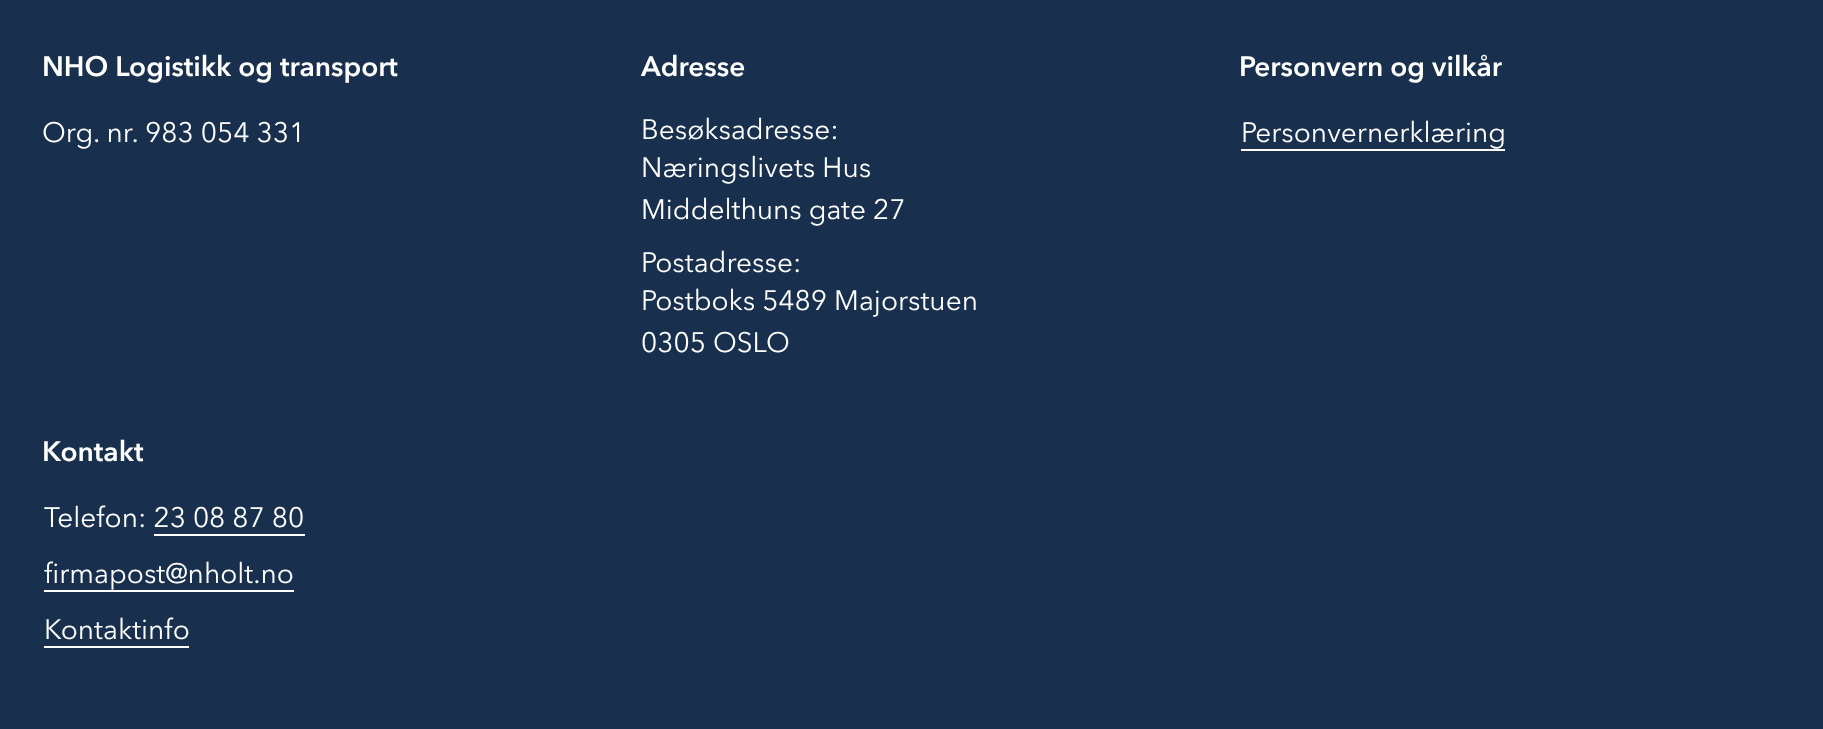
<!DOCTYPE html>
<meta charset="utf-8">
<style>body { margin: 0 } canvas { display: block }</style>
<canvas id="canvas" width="1823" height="729"></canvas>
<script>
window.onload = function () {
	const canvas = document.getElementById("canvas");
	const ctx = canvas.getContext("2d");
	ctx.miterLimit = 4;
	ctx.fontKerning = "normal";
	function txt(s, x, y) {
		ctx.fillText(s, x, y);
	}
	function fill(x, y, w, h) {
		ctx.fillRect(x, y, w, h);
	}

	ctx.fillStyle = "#182F4E";
	fill(0, 0, 1823, 729);
	ctx.fillStyle = "#FFFFFF";
	fill(1241, 149, 264, 2);
	fill(154, 534, 151, 2);
	fill(44, 590, 250, 2);
	fill(44, 646, 145, 2);
	ctx.font = "bold 28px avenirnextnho";
	txt("NHO Logistikk og transport", 42, 76);
	ctx.font = "28px avenirnextnho";
	txt("Org. nr. 983 054 331", 42, 142);
	ctx.font = "bold 28px avenirnextnho";
	txt("Adresse", 641, 76);
	ctx.font = "28px avenirnextnho";
	txt("Besøksadresse:", 641, 139);
	txt("Næringslivets Hus", 641, 177);
	txt("Middelthuns gate 27", 641, 219);
	txt("Postadresse:", 641, 272);
	txt("Postboks 5489 Majorstuen", 641, 310);
	txt("0305 OSLO", 641, 352);
	ctx.font = "bold 28px avenirnextnho";
	txt("Personvern og vilkår", 1239, 76);
	ctx.font = "28px avenirnextnho";
	txt("Personvernerklæring", 1241, 142);
	ctx.font = "bold 28px avenirnextnho";
	txt("Kontakt", 42, 461);
	ctx.font = "28px avenirnextnho";
	txt("Telefon: 23 08 87 80", 44, 527);
	txt("firmapost@nholt.no", 44, 583);
	txt("Kontaktinfo", 44, 639);
};
</script>
